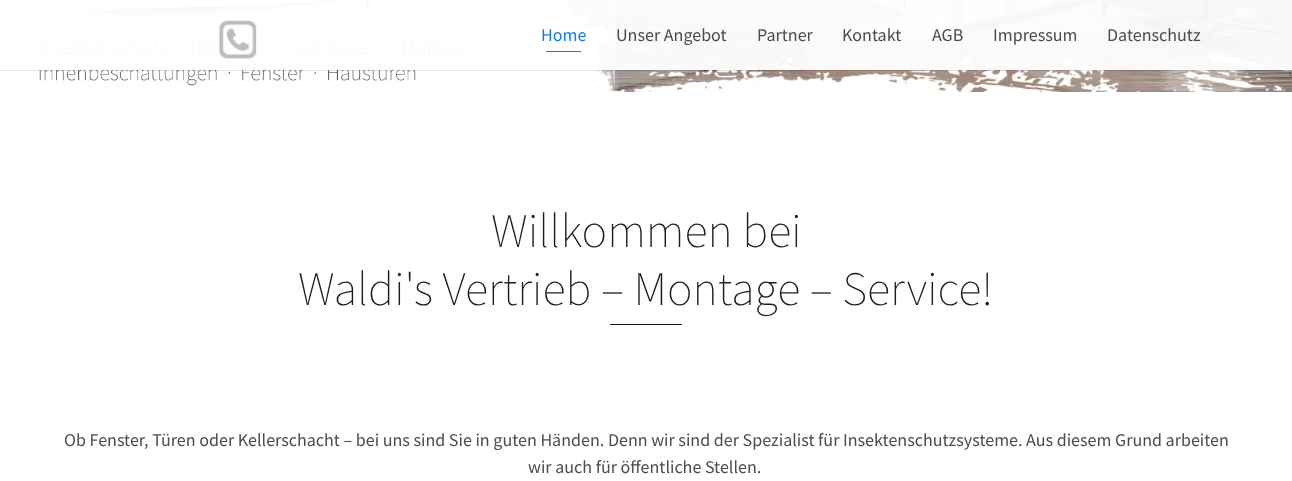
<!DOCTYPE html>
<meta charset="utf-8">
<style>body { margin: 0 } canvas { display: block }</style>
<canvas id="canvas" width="1292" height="481"></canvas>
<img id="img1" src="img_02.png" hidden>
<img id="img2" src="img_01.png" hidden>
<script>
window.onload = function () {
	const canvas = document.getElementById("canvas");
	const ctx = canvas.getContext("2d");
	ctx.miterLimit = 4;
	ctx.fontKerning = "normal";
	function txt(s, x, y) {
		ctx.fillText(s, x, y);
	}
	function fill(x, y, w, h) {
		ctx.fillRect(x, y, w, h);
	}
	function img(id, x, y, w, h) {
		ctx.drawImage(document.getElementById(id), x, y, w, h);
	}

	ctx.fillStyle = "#FFFFFF";
	fill(0, 0, 1292, 481);
	img("img1", 39, 0, 1253, 92);
	ctx.save();
	ctx.beginPath();
	ctx.rect(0, 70, 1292, 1);
	ctx.clip();
	ctx.fillStyle = "rgba(0, 0, 0, 0.1)";
	ctx.filter = "blur(0.5px)";
	ctx.beginPath();
	ctx.rect(0, 1, 1292, 70);
	ctx.fill();
	ctx.filter = "none";
	ctx.restore();
	ctx.fillStyle = "rgba(255, 255, 255, 0.95)";
	fill(39, 0, 1253, 70);
	img("img2", 219, 20, 38, 39);
	ctx.fillStyle = "#167BE7";
	fill(546, 51, 35, 1);
	ctx.fillStyle = "#1C1C1C";
	fill(610, 324, 72, 1);
	ctx.font = "18px Source Sans Pro";
	ctx.fillStyle = "#167BE7";
	txt("Home", 541, 41);
	ctx.fillStyle = "#4C4C4C";
	txt("Unser Angebot", 616, 41);
	txt("Partner", 757, 41);
	txt("Kontakt", 842, 41);
	txt("AGB", 932, 41);
	txt("Impressum", 993, 41);
	txt("Datenschutz", 1107, 41);
	ctx.font = "200 48px Source Sans Pro";
	ctx.fillStyle = "#1C1C1C";
	txt("Willkommen bei", 491, 247);
	txt("Waldi's Vertrieb – Montage – Service!", 298, 305);
	ctx.font = "18px Source Sans Pro";
	ctx.fillStyle = "#4C4C4C";
	txt("Ob Fenster, Türen oder Kellerschacht – bei uns sind Sie in guten Händen. Denn wir sind der Spezialist für Insektenschutzsysteme. Aus diesem Grund arbeiten", 64, 446);
	txt("wir auch für öffentliche Stellen.", 528, 473);
};
</script>
